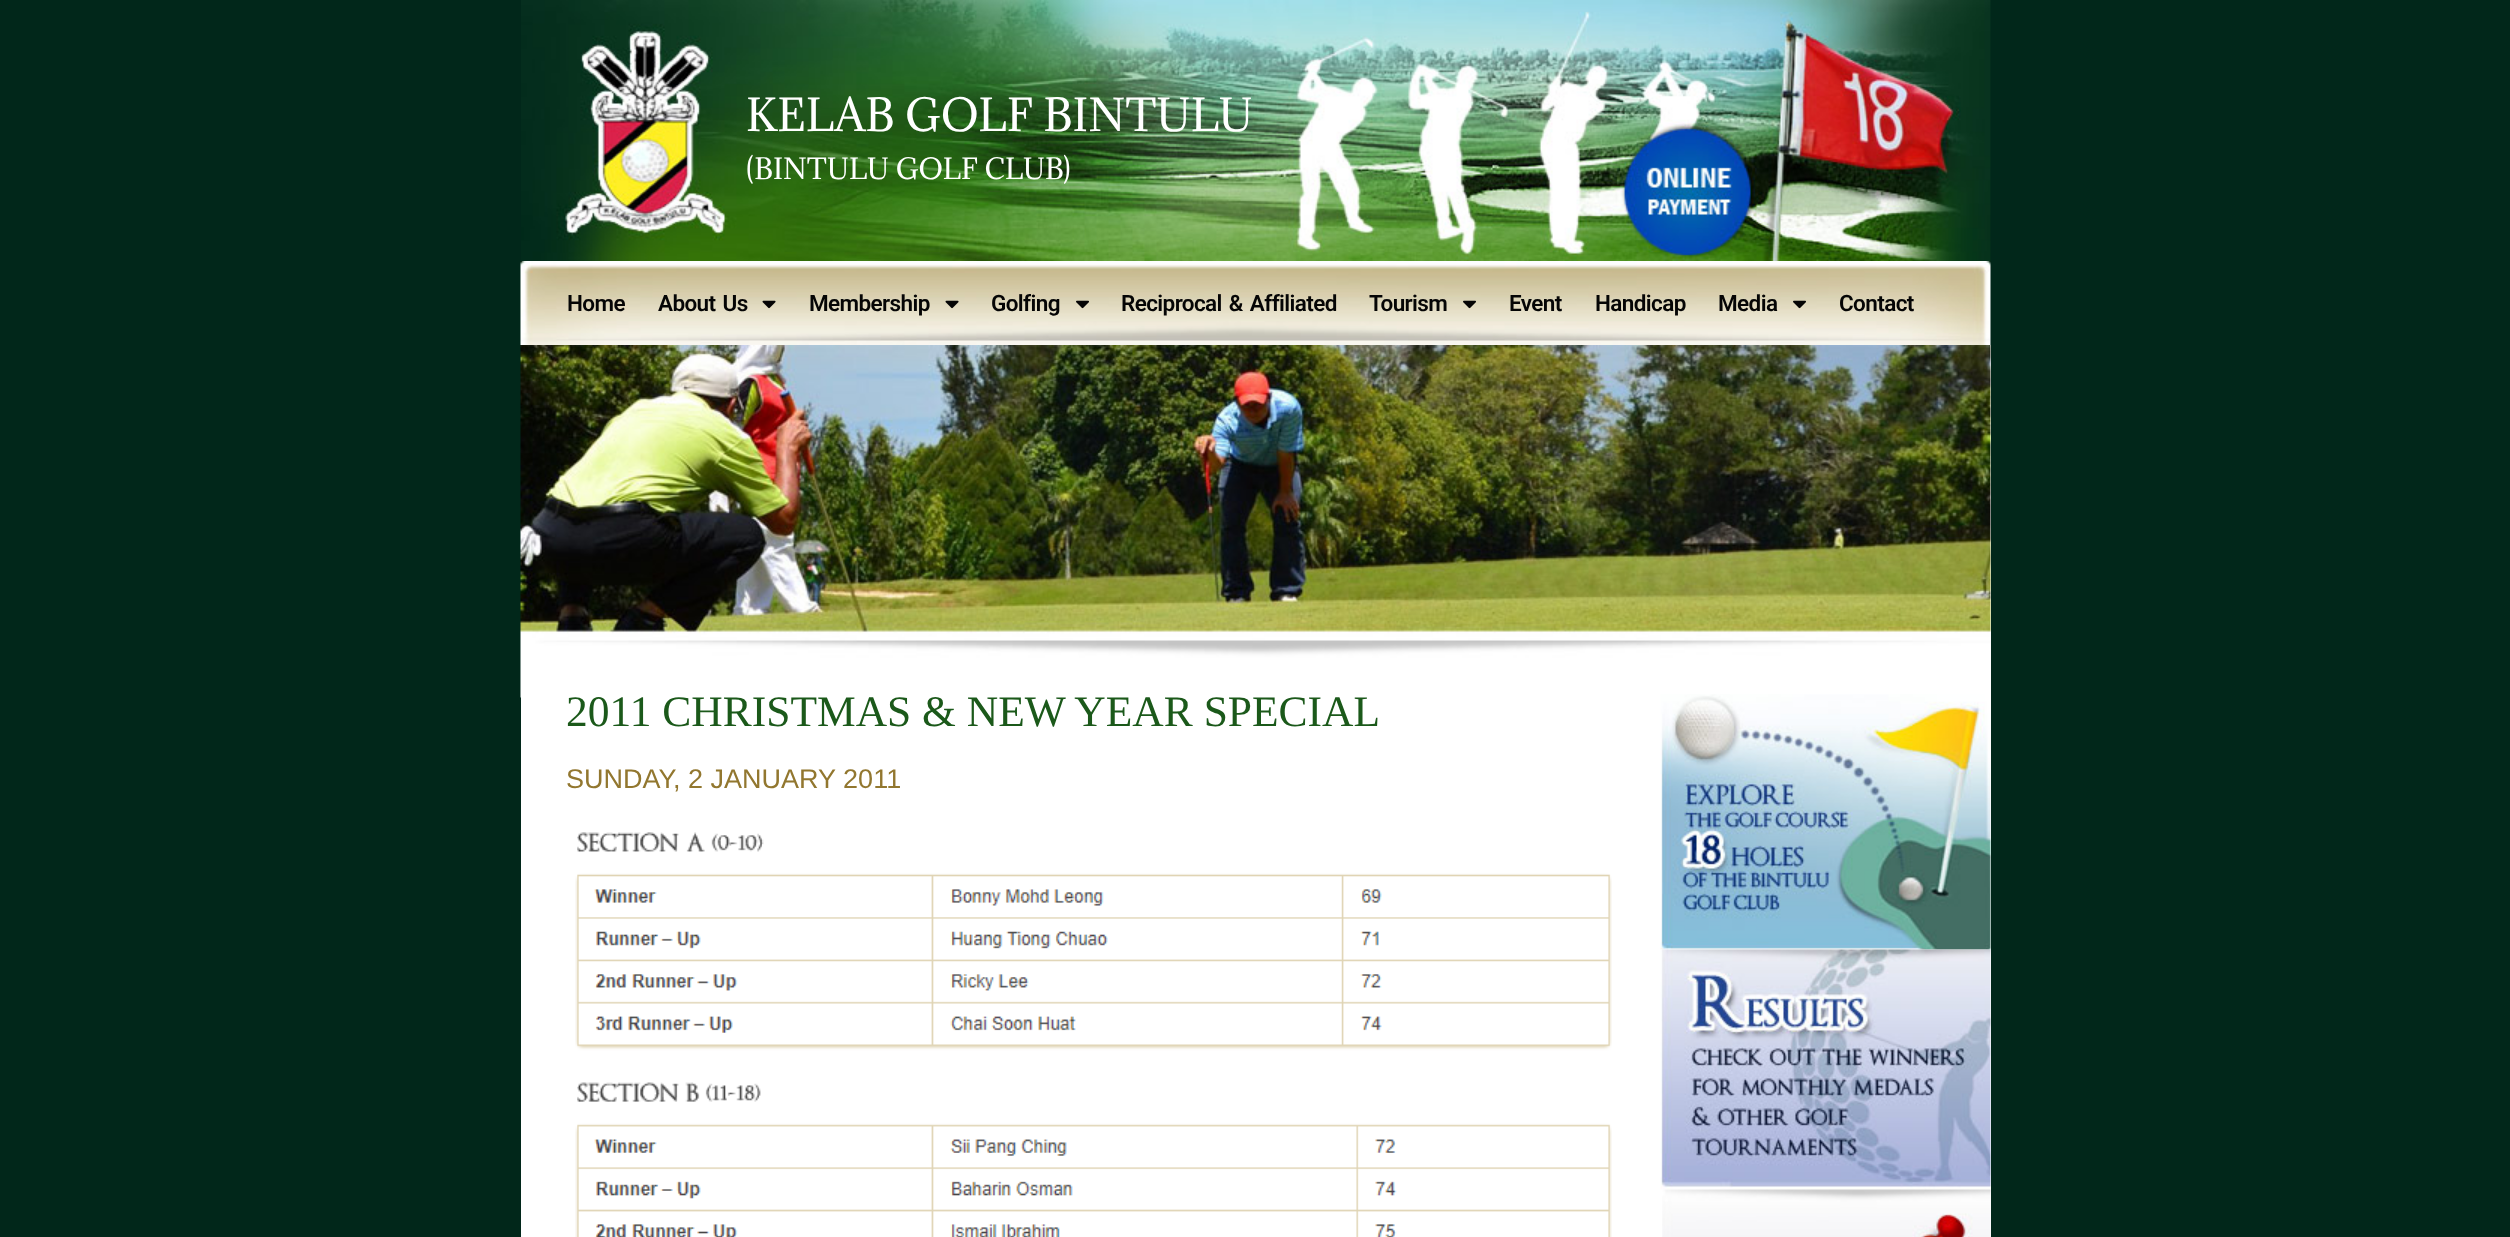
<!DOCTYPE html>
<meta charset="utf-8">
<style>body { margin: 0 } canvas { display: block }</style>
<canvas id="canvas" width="2510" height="1237"></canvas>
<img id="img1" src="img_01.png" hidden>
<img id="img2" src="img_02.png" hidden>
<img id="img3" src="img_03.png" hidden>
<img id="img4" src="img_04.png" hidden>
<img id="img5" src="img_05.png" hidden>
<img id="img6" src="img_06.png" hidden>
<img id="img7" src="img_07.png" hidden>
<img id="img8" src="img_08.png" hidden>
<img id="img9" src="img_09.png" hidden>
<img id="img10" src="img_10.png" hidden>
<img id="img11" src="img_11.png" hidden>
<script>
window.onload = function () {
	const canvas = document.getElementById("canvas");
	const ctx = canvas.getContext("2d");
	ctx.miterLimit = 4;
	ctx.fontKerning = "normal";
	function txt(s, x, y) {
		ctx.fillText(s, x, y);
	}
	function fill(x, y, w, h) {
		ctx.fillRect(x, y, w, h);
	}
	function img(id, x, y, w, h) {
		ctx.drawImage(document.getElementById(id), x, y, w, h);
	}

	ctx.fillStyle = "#01271A";
	fill(0, 0, 2510, 1237);
	img("img1", 521, 0, 1470, 261);
	img("img2", 520, 261, 1471, 84);
	img("img3", 762, 300, 14, 9);
	img("img3", 945, 300, 14, 9);
	img("img4", 1076, 300, 13, 9);
	img("img5", 1463, 300, 13, 9);
	img("img6", 1793, 300, 13, 9);
	ctx.fillStyle = "#FFFFFF";
	fill(521, 345, 1470, 892);
	img("img7", 520, 345, 1471, 353);
	img("img8", 575, 832, 1037, 405);
	img("img9", 1660, 694, 331, 256);
	img("img10", 1660, 949, 331, 241);
	img("img11", 1662, 1189, 329, 48);
	ctx.font = "42px Adamina";
	txt("KELAB GOLF BINTULU", 746, 131);
	ctx.font = "27px Adamina";
	txt("(BINTULU GOLF CLUB)", 746, 179);
	ctx.letterSpacing = "-0.6px";
	ctx.font = "600 22.5px Roboto";
	ctx.fillStyle = "#050505";
	txt("Home", 567, 311);
	ctx.wordSpacing = "2px";
	txt("About Us", 658, 311);
	ctx.wordSpacing = "0px";
	txt("Membership", 809, 311);
	txt("Golfing", 991, 311);
	ctx.wordSpacing = "2px";
	txt("Reciprocal & Affiliated", 1121, 311);
	ctx.wordSpacing = "0px";
	txt("Tourism", 1369, 311);
	txt("Event", 1509, 311);
	txt("Handicap", 1595, 311);
	txt("Media", 1718, 311);
	txt("Contact", 1839, 311);
	ctx.letterSpacing = "0px";
	ctx.font = "43.5px Liberation Serif";
	ctx.fillStyle = "#1B591A";
	txt("2011 CHRISTMAS & NEW YEAR SPECIAL", 566, 726);
	ctx.font = "27px Liberation Sans";
	ctx.fillStyle = "#92772F";
	txt("SUNDAY, 2 JANUARY 2011", 566, 788);
};
</script>
